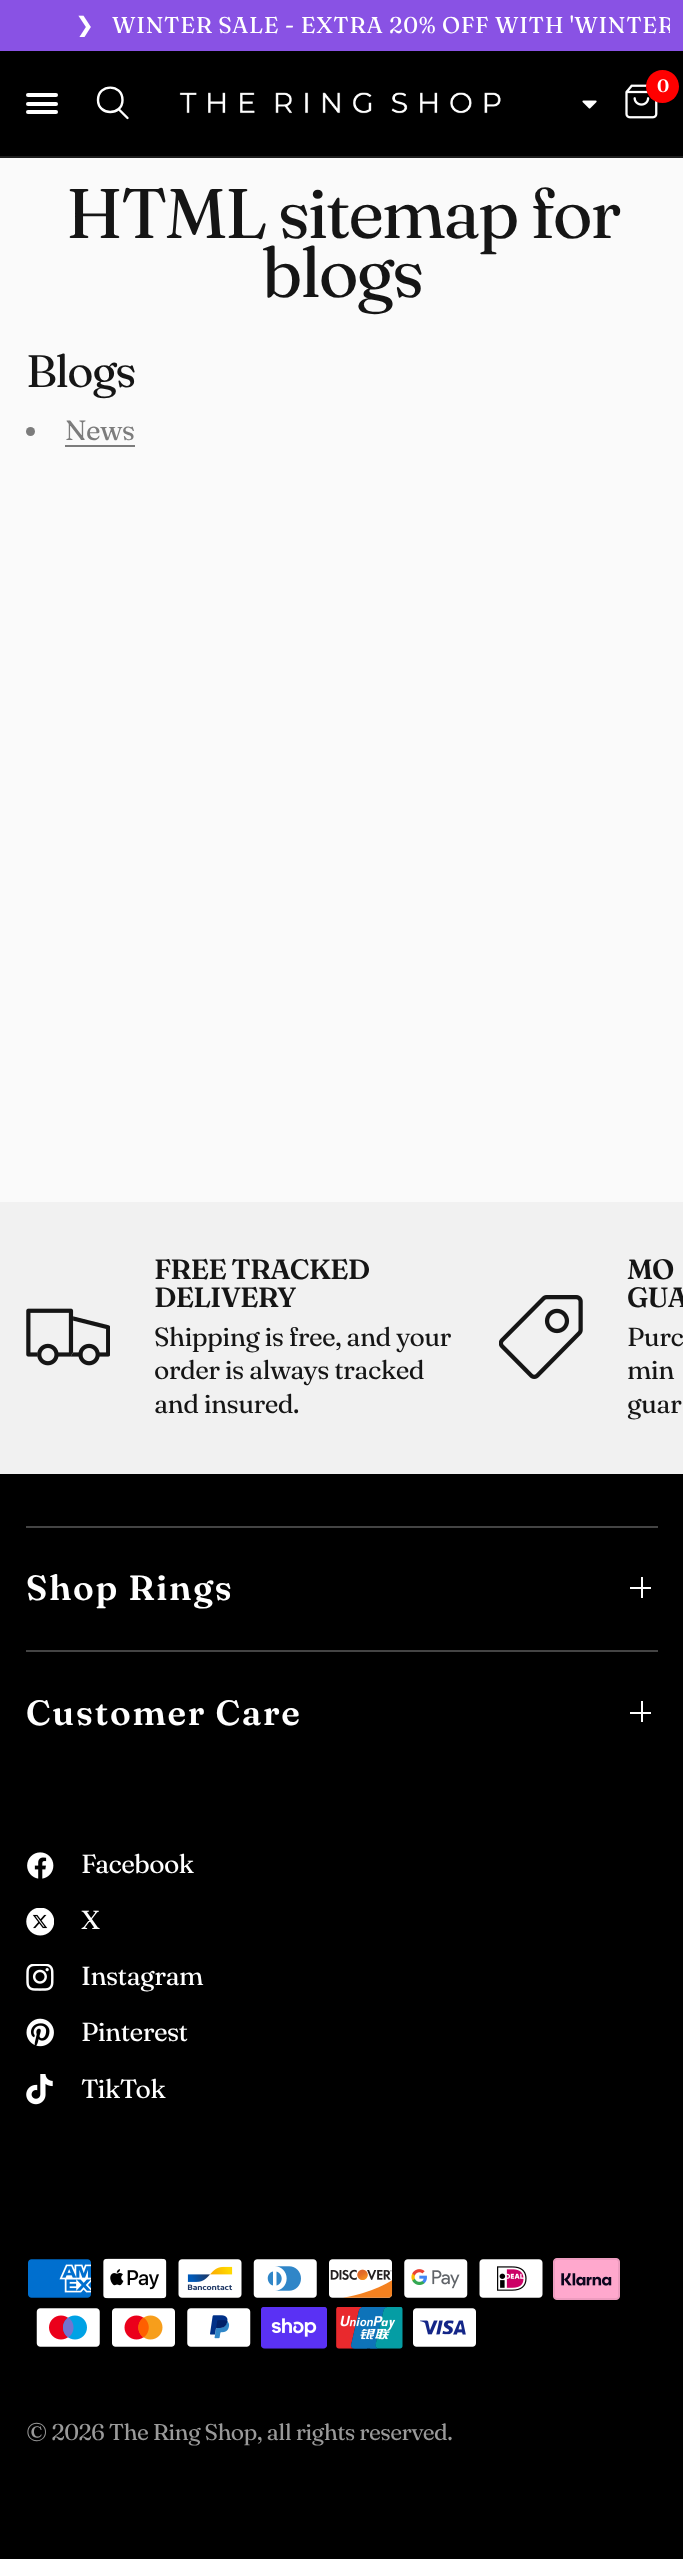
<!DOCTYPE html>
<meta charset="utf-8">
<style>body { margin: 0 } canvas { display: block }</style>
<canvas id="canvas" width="683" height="2559"></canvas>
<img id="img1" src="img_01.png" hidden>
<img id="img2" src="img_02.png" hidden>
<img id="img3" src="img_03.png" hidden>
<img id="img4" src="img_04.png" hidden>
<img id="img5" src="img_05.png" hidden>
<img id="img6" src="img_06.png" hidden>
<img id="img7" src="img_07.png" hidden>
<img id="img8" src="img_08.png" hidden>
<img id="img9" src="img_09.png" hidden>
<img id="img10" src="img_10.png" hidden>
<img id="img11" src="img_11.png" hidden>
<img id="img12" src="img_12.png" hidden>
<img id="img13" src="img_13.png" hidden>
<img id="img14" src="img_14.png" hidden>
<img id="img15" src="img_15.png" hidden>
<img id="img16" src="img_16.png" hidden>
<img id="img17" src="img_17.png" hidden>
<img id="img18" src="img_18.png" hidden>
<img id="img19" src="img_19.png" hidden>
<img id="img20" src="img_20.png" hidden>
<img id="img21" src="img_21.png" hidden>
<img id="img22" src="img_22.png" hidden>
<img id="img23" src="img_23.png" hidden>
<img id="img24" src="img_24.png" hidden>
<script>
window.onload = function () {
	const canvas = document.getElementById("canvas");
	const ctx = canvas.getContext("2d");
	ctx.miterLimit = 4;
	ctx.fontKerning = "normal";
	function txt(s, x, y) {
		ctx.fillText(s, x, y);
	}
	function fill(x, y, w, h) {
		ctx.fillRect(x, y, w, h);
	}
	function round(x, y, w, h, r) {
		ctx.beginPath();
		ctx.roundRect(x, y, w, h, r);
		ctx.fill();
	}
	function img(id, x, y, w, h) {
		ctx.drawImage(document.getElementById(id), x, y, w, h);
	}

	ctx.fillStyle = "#FAFAFA";
	fill(0, 0, 683, 2559);
	ctx.fillStyle = "#8952E4";
	fill(0, 0, 683, 51);
	ctx.fillStyle = "#000000";
	fill(0, 51, 683, 105);
	ctx.fillStyle = "#1E1E1E";
	fill(0, 156, 683, 2);
	ctx.fillStyle = "#FFFFFF";
	round(26, 93, 32, 4, 2);
	round(26, 102, 32, 4, 2);
	round(26, 110, 32, 4, 2);
	ctx.beginPath();
	ctx.moveTo(119, 109.5);
	ctx.lineTo(127.5, 118);
	ctx.moveTo(122.5, 100);
	ctx.bezierCurveTo(122.5, 116, 98, 116, 98, 100);
	ctx.bezierCurveTo(98, 83.5, 122.5, 83.5, 122.5, 100);
	ctx.closePath();
	ctx.strokeStyle = "#FFFFFF";
	ctx.lineWidth = 2.4;
	ctx.lineCap = "round";
	ctx.lineJoin = "round";
	ctx.stroke();
	img("img1", 179, 92, 322, 22);
	img("img2", 625, 84, 33, 35);
	ctx.fillStyle = "#FF0000";
	ctx.beginPath();
	ctx.arc(662.5, 86.5, 16.5, 0, Math.PI * 2);
	ctx.fill();
	img("img3", 582, 100, 15, 9);
	ctx.fillStyle = "#7C7C7C";
	ctx.beginPath();
	ctx.arc(30.5, 431.5, 4.5, 0, Math.PI * 2);
	ctx.fill();
	fill(65, 445, 70, 2);
	ctx.fillStyle = "#F1F1F1";
	fill(0, 1202, 683, 272);
	img("img4", 26, 1308, 84, 58);
	img("img5", 499, 1295, 84, 84);
	ctx.fillStyle = "#000000";
	fill(0, 1474, 683, 1085);
	ctx.fillStyle = "#444444";
	fill(26, 1526, 632, 2);
	ctx.fillStyle = "#FFFFFF";
	fill(641, 1577, 2, 21);
	fill(630, 1587, 21, 2);
	ctx.fillStyle = "#444444";
	fill(26, 1650, 632, 2);
	ctx.fillStyle = "#FFFFFF";
	fill(641, 1701, 2, 21);
	fill(630, 1712, 21, 2);
	img("img6", 27, 1852, 27, 27);
	img("img7", 26, 1908, 28, 28);
	img("img8", 26, 1964, 28, 27);
	img("img9", 26, 2018, 28, 29);
	img("img10", 26, 2074, 27, 31);
	img("img11", 28, 2259, 63, 39);
	img("img12", 103, 2258, 64, 41);
	img("img13", 178, 2259, 64, 39);
	img("img14", 253, 2259, 64, 39);
	img("img15", 329, 2259, 64, 39);
	img("img16", 404, 2259, 64, 39);
	img("img17", 479, 2259, 64, 39);
	img("img18", 553, 2258, 67, 42);
	img("img19", 36, 2308, 64, 39);
	img("img20", 112, 2308, 63, 39);
	img("img21", 187, 2308, 64, 39);
	img("img22", 261, 2307, 66, 42);
	img("img23", 336, 2307, 67, 42);
	img("img24", 413, 2308, 63, 39);
	ctx.save();
	ctx.beginPath();
	ctx.rect(14, 14, 656, 23);
	ctx.clip();
	ctx.letterSpacing = "0.7px";
	ctx.font = "22.75px DejaVu Sans";
	txt("❯⠀", 75, 33);
	ctx.wordSpacing = "-0.25px";
	ctx.font = "22.75px 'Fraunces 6'";
	txt("WINTER SALE - EXTRA 20% OFF WITH 'WINTER", 112, 33);
	ctx.restore();
	ctx.letterSpacing = "-0.6px";
	ctx.font = "600 18px 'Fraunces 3'";
	txt("0", 657, 92);
	ctx.letterSpacing = "-2.1px";
	ctx.font = "70px Fraunces";
	ctx.fillStyle = "#151515";
	txt("HTML sitemap for", 66, 238);
	txt("blogs", 262, 297);
	ctx.letterSpacing = "-1.5px";
	ctx.font = "45.5px 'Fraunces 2'";
	txt("Blogs", 26, 387);
	ctx.letterSpacing = "-0.6px";
	ctx.font = "28px 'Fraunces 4'";
	ctx.fillStyle = "#7C7C7C";
	txt("News", 65, 440);
	ctx.letterSpacing = "-0.8px";
	ctx.font = "600 28px 'Fraunces 2'";
	ctx.fillStyle = "#151515";
	txt("FREE TRACKED", 154, 1279);
	txt("DELIVERY", 154, 1307);
	ctx.letterSpacing = "-0.6px";
	ctx.font = "26.25px 'Fraunces 3'";
	txt("Shipping is free, and your", 154, 1346);
	txt("order is always tracked", 154, 1379);
	txt("and insured.", 154, 1413);
	ctx.letterSpacing = "-0.8px";
	ctx.font = "600 28px 'Fraunces 2'";
	txt("MO", 627, 1279);
	txt("GUA", 627, 1307);
	ctx.letterSpacing = "-0.6px";
	ctx.font = "26.25px 'Fraunces 3'";
	txt("Purc", 627, 1346);
	txt("min", 627, 1379);
	txt("guar", 627, 1413);
	ctx.letterSpacing = "1.75px";
	ctx.font = "600 35px Fraunces";
	ctx.fillStyle = "#FFFFFF";
	txt("Shop Rings", 26, 1600);
	txt("Customer Care", 26, 1725);
	ctx.letterSpacing = "-0.6px";
	ctx.font = "26.25px 'Fraunces 3'";
	txt("Facebook", 81, 1873);
	txt("X", 81, 1929);
	txt("Instagram", 81, 1985);
	txt("Pinterest", 81, 2041);
	txt("TikTok", 81, 2098);
	ctx.font = "22.75px 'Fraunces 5'";
	ctx.fillStyle = "#999999";
	txt("© 2026 The Ring Shop, all rights reserved.", 26, 2440);
};
</script>
